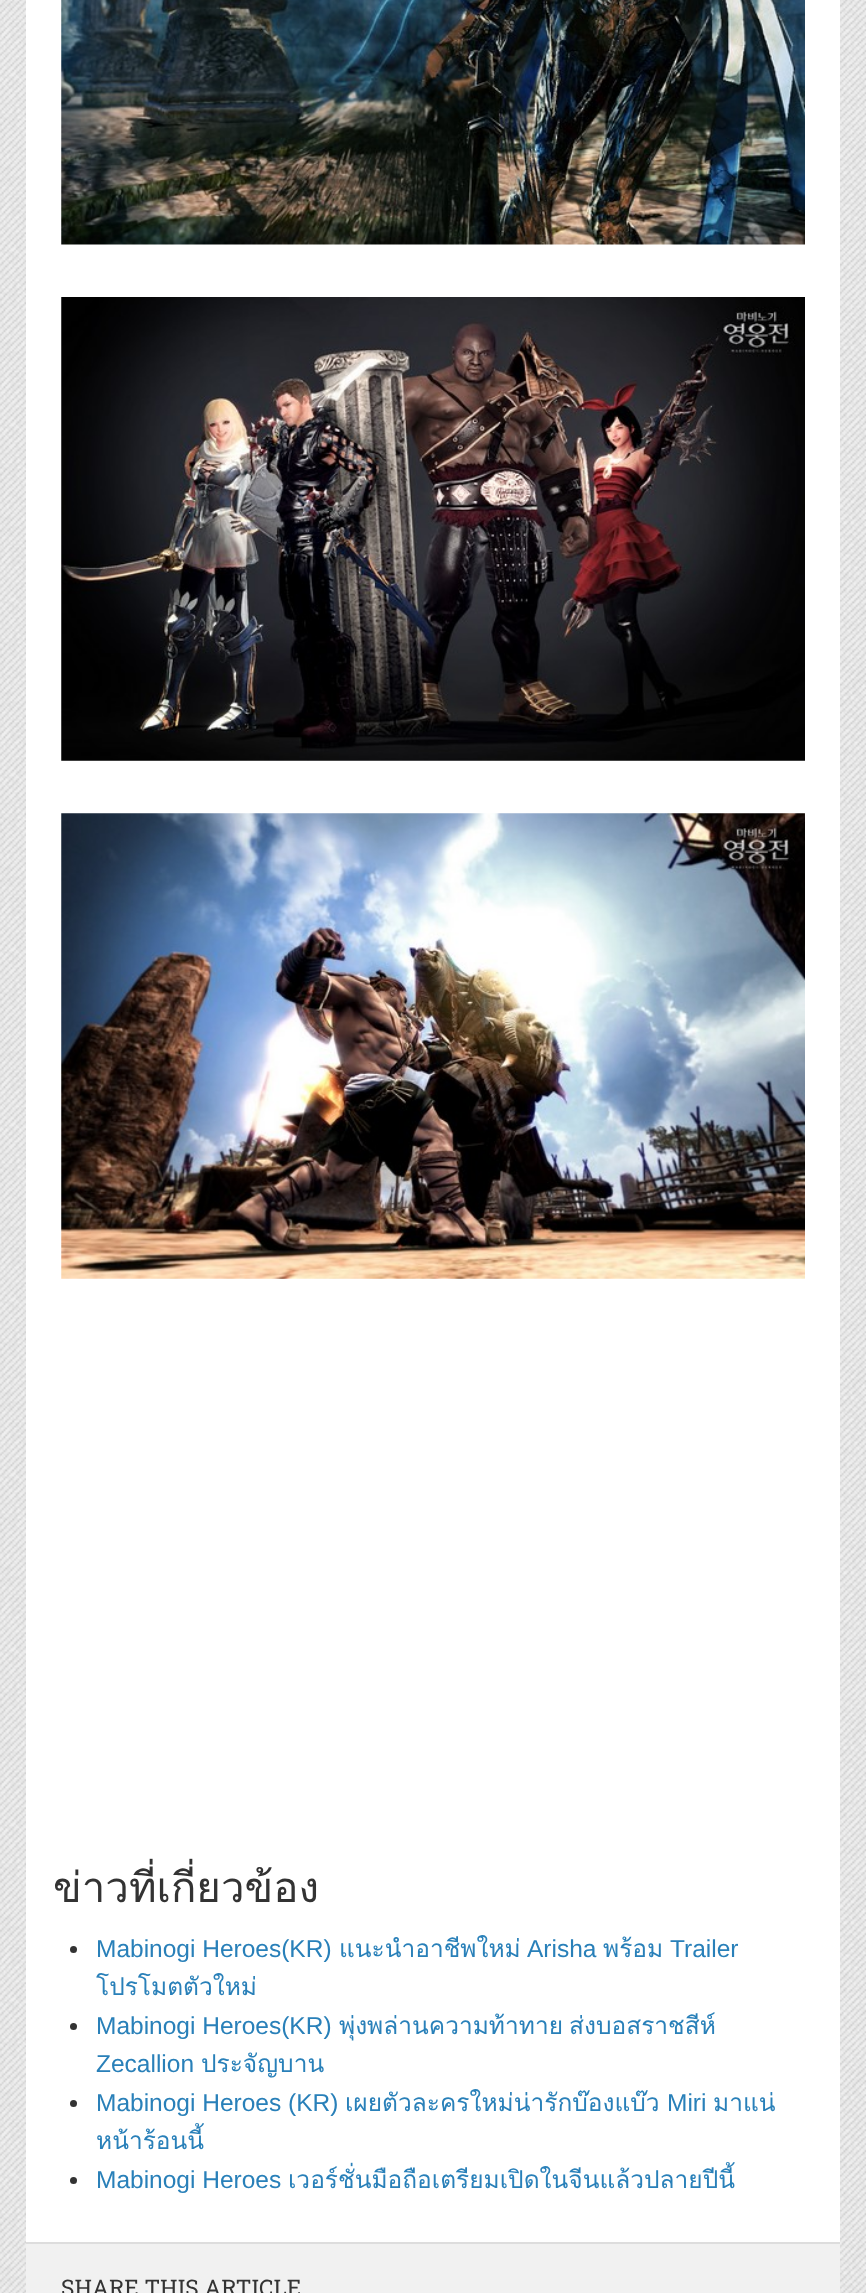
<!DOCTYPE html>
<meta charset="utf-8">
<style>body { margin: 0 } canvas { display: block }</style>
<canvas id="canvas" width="866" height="2293"></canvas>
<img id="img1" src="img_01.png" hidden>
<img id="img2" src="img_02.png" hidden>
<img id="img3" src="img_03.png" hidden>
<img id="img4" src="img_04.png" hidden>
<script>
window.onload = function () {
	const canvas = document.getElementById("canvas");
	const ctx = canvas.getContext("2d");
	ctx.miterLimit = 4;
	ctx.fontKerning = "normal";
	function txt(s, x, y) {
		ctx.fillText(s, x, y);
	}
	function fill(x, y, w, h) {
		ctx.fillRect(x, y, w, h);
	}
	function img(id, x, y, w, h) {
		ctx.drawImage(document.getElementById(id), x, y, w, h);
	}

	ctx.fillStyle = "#FFFFFF";
	fill(0, 0, 866, 2293);
	img("img1", 0, 0, 866, 2293);
	fill(26, 0, 814, 2242);
	img("img2", 61, 0, 744, 245);
	img("img3", 61, 297, 744, 464);
	img("img4", 61, 813, 744, 466);
	ctx.fillStyle = "#333333";
	ctx.beginPath();
	ctx.arc(73.5, 1949.5, 3.5, 0, Math.PI * 2);
	ctx.fill();
	ctx.beginPath();
	ctx.arc(73.5, 2026.5, 3.5, 0, Math.PI * 2);
	ctx.fill();
	ctx.beginPath();
	ctx.arc(73.5, 2103.5, 3.5, 0, Math.PI * 2);
	ctx.fill();
	ctx.beginPath();
	ctx.arc(73.5, 2180.5, 3.5, 0, Math.PI * 2);
	ctx.fill();
	ctx.fillStyle = "#DDDDDD";
	fill(26, 2242, 814, 2);
	ctx.fillStyle = "#F1F1F1";
	fill(26, 2244, 814, 49);
	ctx.font = "42px Loma";
	ctx.fillStyle = "#333333";
	txt("ข่าวที่เกี่ยวข้อง", 53, 1902);
	ctx.font = "24.5px Liberation Sans";
	ctx.fillStyle = "#2980B9";
	txt("Mabinogi Heroes(KR)", 96, 1957);
	ctx.font = "24.5px Loma";
	txt("แนะนำอาชีพใหม่", 339, 1957);
	ctx.font = "24.5px Liberation Sans";
	txt("Arisha", 527, 1957);
	ctx.font = "24.5px Loma";
	txt("พร้อม", 603, 1957);
	ctx.font = "24.5px Liberation Sans";
	txt("Trailer", 670, 1957);
	ctx.font = "24.5px Loma";
	txt("โปรโมตตัวใหม่", 96, 1995);
	ctx.font = "24.5px Liberation Sans";
	txt("Mabinogi Heroes(KR)", 96, 2034);
	ctx.font = "24.5px Loma";
	txt("พุ่งพล่านความท้าทาย", 339, 2034);
	txt("ส่งบอสราชสีห์", 569, 2034);
	ctx.font = "24.5px Liberation Sans";
	txt("Zecallion", 96, 2072);
	ctx.font = "24.5px Loma";
	txt("ประจัญบาน", 201, 2072);
	ctx.font = "24.5px Liberation Sans";
	txt("Mabinogi Heroes (KR)", 96, 2111);
	ctx.font = "24.5px Loma";
	txt("เผยตัวละครใหม่น่ารักบ๊องแบ๊ว", 345, 2111);
	ctx.font = "24.5px Liberation Sans";
	txt("Miri", 667, 2111);
	ctx.font = "24.5px Loma";
	txt("มาแน่", 713, 2111);
	txt("หน้าร้อนนี้", 96, 2149);
	ctx.font = "24.5px Liberation Sans";
	txt("Mabinogi Heroes", 96, 2188);
	ctx.font = "24.5px Loma";
	txt("เวอร์ชั่นมือถือเตรียมเปิดในจีนแล้วปลายปีนี้", 288, 2188);
	ctx.font = "22.75px Roboto Slab";
	ctx.fillStyle = "#333333";
	txt("SHARE THIS ARTICLE", 61, 2296);
};
</script>
